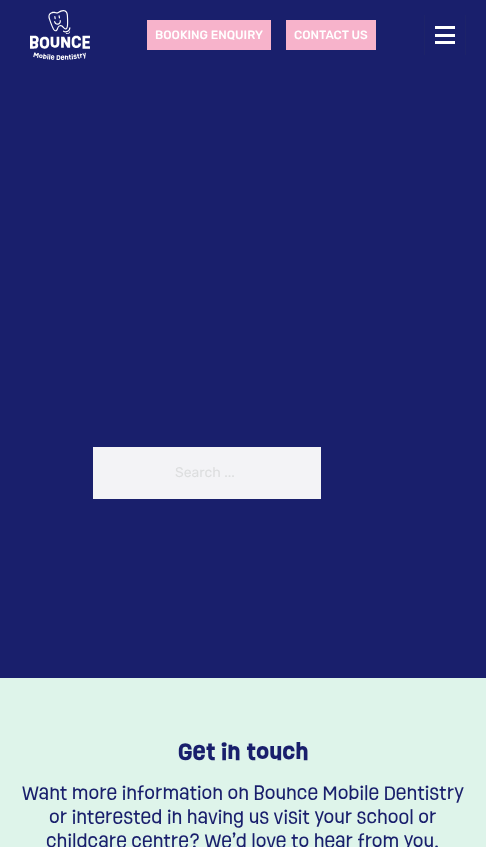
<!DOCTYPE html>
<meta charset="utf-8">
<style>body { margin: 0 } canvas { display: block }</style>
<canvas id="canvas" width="486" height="847"></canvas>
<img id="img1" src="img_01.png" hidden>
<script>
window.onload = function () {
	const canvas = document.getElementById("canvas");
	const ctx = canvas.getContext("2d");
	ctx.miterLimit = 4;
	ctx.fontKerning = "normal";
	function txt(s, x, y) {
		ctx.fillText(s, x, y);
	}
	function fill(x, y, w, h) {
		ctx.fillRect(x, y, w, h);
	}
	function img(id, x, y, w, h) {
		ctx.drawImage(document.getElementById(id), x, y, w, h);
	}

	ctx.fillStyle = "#191F6C";
	fill(0, 0, 486, 847);
	img("img1", 30, 10, 60, 50);
	ctx.fillStyle = "#F7B3CB";
	fill(147, 20, 124, 30);
	fill(286, 20, 90, 30);
	ctx.fillStyle = "#1D2369";
	fill(465, 15, 1, 40);
	fill(424, 15, 1, 40);
	ctx.fillStyle = "#FFFFFF";
	fill(435, 26, 20, 3);
	fill(435, 34, 20, 3);
	fill(435, 41, 20, 3);
	ctx.fillStyle = "#F3F3F6";
	fill(93, 447, 228, 52);
	ctx.fillStyle = "#DEF4EA";
	fill(0, 678, 486, 169);
	ctx.font = "500 12px Rubik";
	ctx.fillStyle = "#FFFFFF";
	txt("BOOKING ENQUIRY", 155, 39);
	txt("CONTACT US", 294, 39);
	ctx.font = "14px Rubik";
	ctx.fillStyle = "#DDDEDF";
	txt("Search ...", 175, 477);
	ctx.font = "bold 22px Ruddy";
	ctx.fillStyle = "#191F6C";
	txt("Get in touch", 178, 759);
	ctx.font = "18px Ruddy";
	txt("Want more information on Bounce Mobile Dentistry", 22, 799);
	txt("or interested in having us visit your school or", 49, 823);
	txt("childcare centre? We’d love to hear from you.", 46, 847);
};
</script>
